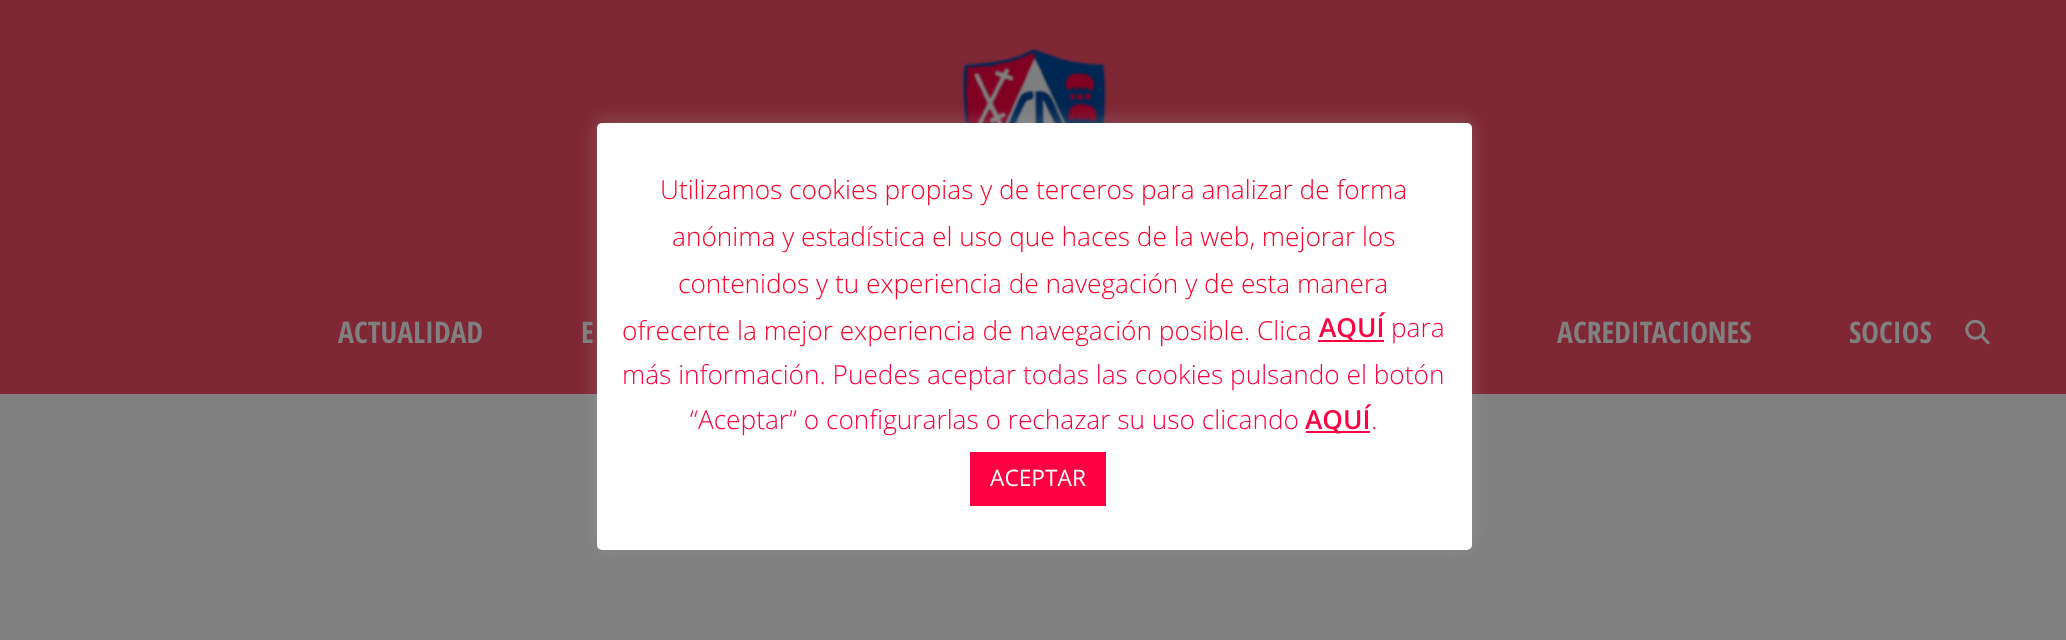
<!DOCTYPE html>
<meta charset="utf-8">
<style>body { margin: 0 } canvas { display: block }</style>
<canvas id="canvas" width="2066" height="640"></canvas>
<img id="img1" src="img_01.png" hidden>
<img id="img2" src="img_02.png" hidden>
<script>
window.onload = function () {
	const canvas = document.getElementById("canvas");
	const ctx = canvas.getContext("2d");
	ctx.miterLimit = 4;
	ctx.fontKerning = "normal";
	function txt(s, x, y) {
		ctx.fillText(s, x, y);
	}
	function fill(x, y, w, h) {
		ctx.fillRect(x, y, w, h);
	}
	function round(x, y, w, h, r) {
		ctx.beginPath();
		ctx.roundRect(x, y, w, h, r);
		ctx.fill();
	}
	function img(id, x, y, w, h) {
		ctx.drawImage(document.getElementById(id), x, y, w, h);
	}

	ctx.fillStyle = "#808080";
	fill(0, 0, 2066, 640);
	ctx.fillStyle = "#802735";
	fill(0, 0, 2066, 394);
	img("img1", 961, 49, 146, 74);
	ctx.fillStyle = "rgba(172, 171, 171, 0.3)";
	ctx.filter = "blur(9px)";
	ctx.beginPath();
	ctx.roundRect(597, 121, 875, 427, 5);
	ctx.fill();
	ctx.filter = "none";
	ctx.fillStyle = "#FFFFFF";
	round(597, 123, 875, 427, 5);
	ctx.fillStyle = "#FF0042";
	fill(1318, 340, 66, 2);
	fill(1306, 431, 64, 2);
	fill(970, 452, 136, 54);
	img("img2", 1965, 319, 25, 26);
	ctx.font = "300 26.25px Open Sans";
	ctx.fillStyle = "#FF002A";
	txt("Utilizamos cookies propias y de terceros para analizar de forma", 660, 199);
	txt("anónima y estadística el uso que haces de la web, mejorar los", 672, 246);
	txt("contenidos y tu experiencia de navegación y de esta manera", 678, 293);
	txt("ofrecerte la mejor experiencia de navegación posible. Clica", 622, 340);
	ctx.font = "600 26.25px Open Sans";
	ctx.fillStyle = "#FF0042";
	txt("AQUÍ", 1319, 337);
	ctx.font = "300 26.25px Open Sans";
	txt("para", 1391, 337);
	txt("más información. Puedes aceptar todas las cookies pulsando el botón", 622, 384);
	txt("“Aceptar” o configurarlas o rechazar su uso clicando", 690, 429);
	ctx.font = "600 26.25px Open Sans";
	txt("AQUÍ", 1305, 429);
	ctx.font = "300 26.25px Open Sans";
	txt(".", 1371, 429);
	ctx.font = "22.75px Open Sans";
	ctx.fillStyle = "#FFFFFF";
	txt("ACEPTAR", 990, 486);
	ctx.font = "bold 29.75px Open Sans Condensed";
	ctx.fillStyle = "#808080";
	txt("ACTUALIDAD", 338, 343);
	txt("E", 581, 343);
	txt("ACREDITACIONES", 1557, 343);
	txt("SOCIOS", 1849, 343);
};
</script>
